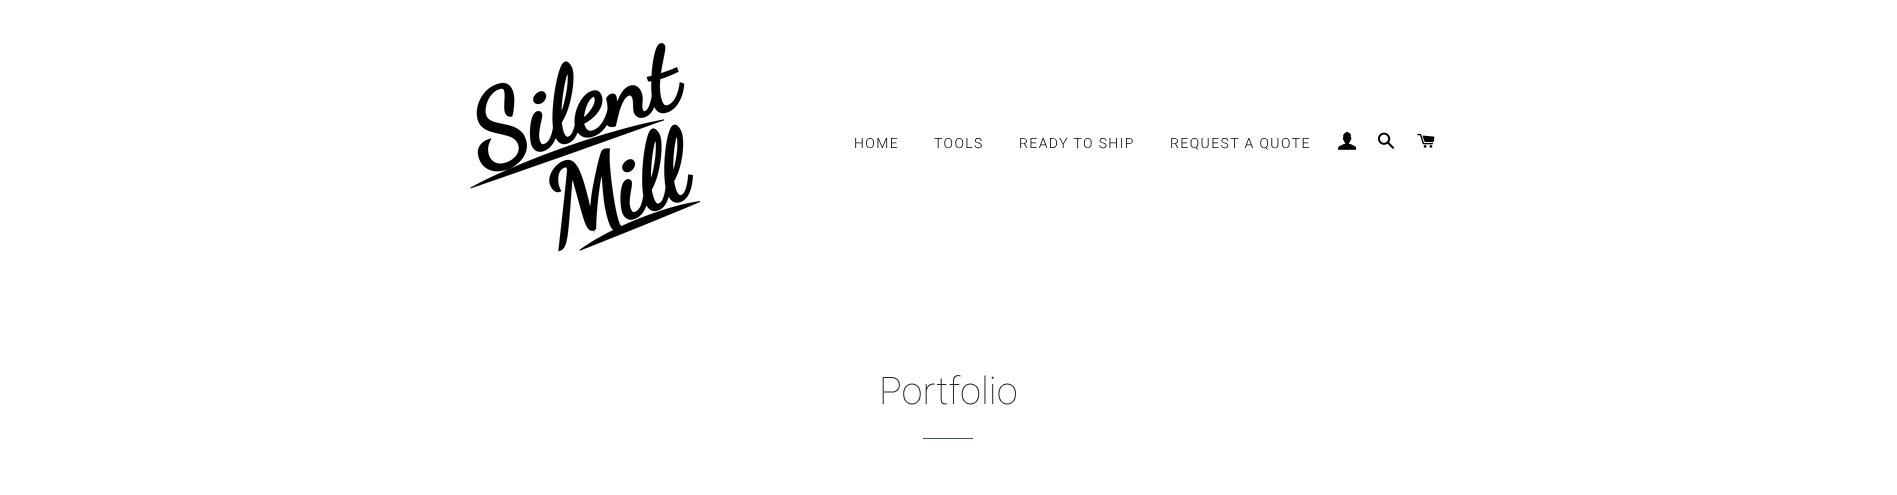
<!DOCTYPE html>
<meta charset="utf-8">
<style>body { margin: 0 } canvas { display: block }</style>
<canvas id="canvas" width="1897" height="495"></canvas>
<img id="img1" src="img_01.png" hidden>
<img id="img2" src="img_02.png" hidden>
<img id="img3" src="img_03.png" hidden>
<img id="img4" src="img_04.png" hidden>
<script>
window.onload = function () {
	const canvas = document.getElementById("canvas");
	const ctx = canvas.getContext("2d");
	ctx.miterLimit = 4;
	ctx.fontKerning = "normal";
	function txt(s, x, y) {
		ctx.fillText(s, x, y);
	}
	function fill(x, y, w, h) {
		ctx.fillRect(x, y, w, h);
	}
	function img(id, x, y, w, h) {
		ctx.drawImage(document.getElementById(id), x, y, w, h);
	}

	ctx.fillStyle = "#FFFFFF";
	fill(0, 0, 1897, 495);
	img("img1", 470, 42, 231, 210);
	img("img2", 1338, 131, 19, 19);
	img("img3", 1377, 132, 18, 17);
	img("img4", 1417, 133, 18, 15);
	ctx.fillStyle = "#495057";
	fill(923, 438, 50, 1);
	ctx.letterSpacing = "1.4px";
	ctx.font = "300 14px Roboto";
	ctx.fillStyle = "#000000";
	txt("HOME", 854, 148);
	txt("TOOLS", 934, 148);
	txt("READY TO SHIP", 1019, 148);
	txt("REQUEST A QUOTE", 1170, 148);
	ctx.letterSpacing = "0px";
	ctx.font = "100 38px Roboto";
	ctx.fillStyle = "#212529";
	txt("Portfolio", 879, 404);
};
</script>
